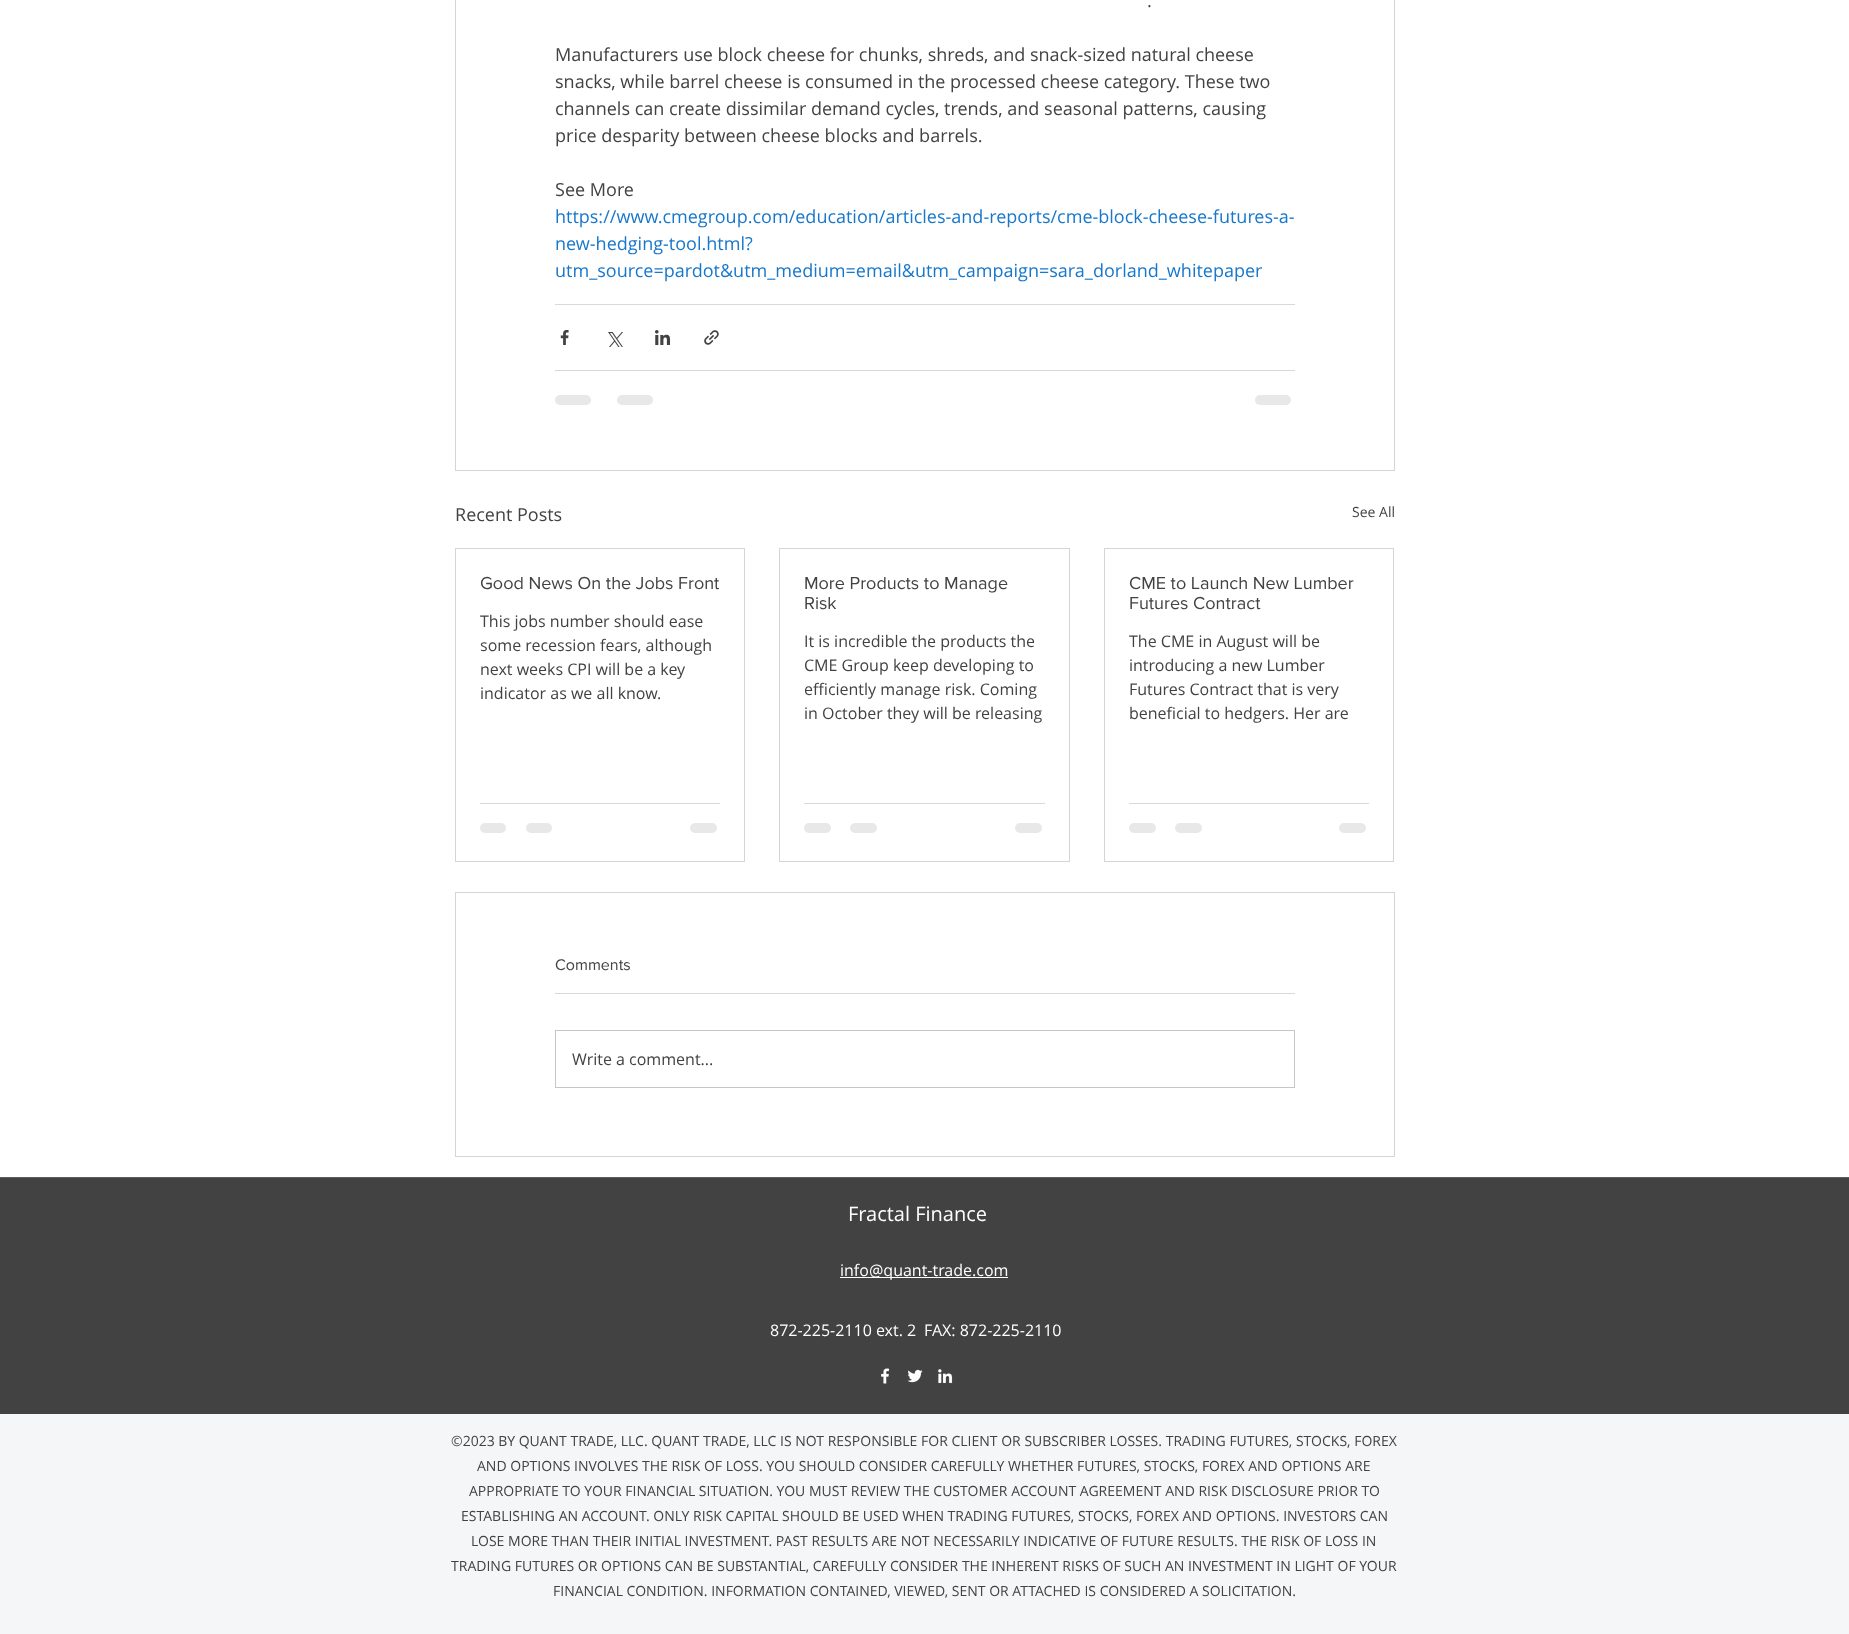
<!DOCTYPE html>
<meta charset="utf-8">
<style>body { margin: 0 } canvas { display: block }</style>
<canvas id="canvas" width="1849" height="1634"></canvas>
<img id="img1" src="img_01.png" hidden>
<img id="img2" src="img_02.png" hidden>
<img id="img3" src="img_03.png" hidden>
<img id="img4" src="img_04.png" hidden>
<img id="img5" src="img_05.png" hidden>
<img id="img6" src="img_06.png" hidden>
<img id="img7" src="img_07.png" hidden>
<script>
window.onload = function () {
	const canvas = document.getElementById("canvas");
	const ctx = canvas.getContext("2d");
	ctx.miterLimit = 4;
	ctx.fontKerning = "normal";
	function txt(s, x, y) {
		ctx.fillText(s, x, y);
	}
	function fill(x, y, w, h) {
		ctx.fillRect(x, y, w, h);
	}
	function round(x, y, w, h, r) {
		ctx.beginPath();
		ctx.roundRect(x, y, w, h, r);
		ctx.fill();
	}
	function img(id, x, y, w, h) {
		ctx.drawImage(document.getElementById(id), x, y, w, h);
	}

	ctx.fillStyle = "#FFFFFF";
	fill(0, 0, 1849, 1634);
	ctx.strokeStyle = "#D5D5D5";
	ctx.strokeRect(455.5, -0.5, 939, 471);
	ctx.fillStyle = "#D9D9D9";
	fill(555, 304, 740, 1);
	img("img1", 560, 330, 9, 15);
	img("img2", 608, 332, 15, 15);
	img("img3", 655, 330, 15, 15);
	img("img4", 704, 330, 15, 15);
	fill(555, 370, 740, 1);
	ctx.fillStyle = "#E8E8E8";
	round(555, 395, 36, 10, 5);
	round(617, 395, 36, 10, 5);
	round(1255, 395, 36, 10, 5);
	ctx.strokeRect(455.5, 548.5, 289, 313);
	ctx.fillStyle = "#D9D9D9";
	fill(480, 803, 240, 1);
	ctx.fillStyle = "#E8E8E8";
	round(480, 823, 26, 10, 5);
	round(526, 823, 26, 10, 5);
	round(690, 823, 27, 10, 5);
	ctx.strokeRect(779.5, 548.5, 290, 313);
	ctx.fillStyle = "#D9D9D9";
	fill(804, 803, 241, 1);
	ctx.fillStyle = "#E8E8E8";
	round(804, 823, 27, 10, 5);
	round(850, 823, 27, 10, 5);
	round(1015, 823, 27, 10, 5);
	ctx.strokeRect(1104.5, 548.5, 289, 313);
	ctx.fillStyle = "#D9D9D9";
	fill(1129, 803, 240, 1);
	ctx.fillStyle = "#E8E8E8";
	round(1129, 823, 27, 10, 5);
	round(1175, 823, 27, 10, 5);
	round(1339, 823, 27, 10, 5);
	ctx.strokeRect(455.5, 892.5, 939, 264);
	ctx.fillStyle = "#D9D9D9";
	fill(555, 993, 740, 1);
	ctx.strokeStyle = "#C6C6C6";
	ctx.strokeRect(555.5, 1030.5, 739, 57);
	ctx.fillStyle = "#424242";
	fill(0, 1178, 1849, 236);
	ctx.fillStyle = "#5E5E5E";
	fill(0, 1177, 1849, 1);
	ctx.fillStyle = "#FFFFFF";
	fill(840, 1277, 168, 1);
	img("img5", 881, 1368, 9, 16);
	img("img6", 907, 1369, 16, 14);
	img("img7", 938, 1369, 15, 15);
	ctx.fillStyle = "#F5F6F8";
	fill(0, 1414, 1849, 220);
	ctx.font = "18px Open Sans";
	ctx.fillStyle = "#424242";
	txt(".", 1147, 7);
	txt("Manufacturers use block cheese for chunks, shreds, and snack-sized natural cheese", 555, 61);
	txt("snacks, while barrel cheese is consumed in the processed cheese category. These two", 555, 88);
	txt("channels can create dissimilar demand cycles, trends, and seasonal patterns, causing", 555, 115);
	txt("price desparity between cheese blocks and barrels.", 555, 142);
	txt("See More", 555, 196);
	ctx.fillStyle = "#1777CB";
	txt("https://www.cmegroup.com/education/articles-and-reports/cme-block-cheese-futures-a-", 555, 223);
	txt("new-hedging-tool.html?", 555, 250);
	txt("utm_source=pardot&utm_medium=email&utm_campaign=sara_dorland_whitepaper", 555, 277);
	ctx.fillStyle = "#424242";
	txt("Recent Posts", 455, 521);
	ctx.font = "14px Open Sans";
	txt("See All", 1352, 517);
	ctx.font = "18px 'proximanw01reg'";
	txt("Good News On the Jobs Front", 480, 589);
	ctx.font = "16px Open Sans";
	txt("This jobs number should ease", 480, 627);
	txt("some recession fears, although", 480, 651);
	txt("next weeks CPI will be a key", 480, 675);
	txt("indicator as we all know.", 480, 699);
	ctx.font = "18px 'proximanw01reg'";
	txt("More Products to Manage", 804, 589);
	txt("Risk", 804, 609);
	ctx.font = "16px Open Sans";
	txt("It is incredible the products the", 804, 647);
	txt("CME Group keep developing to", 804, 671);
	txt("efficiently manage risk. Coming", 804, 695);
	txt("in October they will be releasing", 804, 719);
	ctx.font = "18px 'proximanw01reg'";
	txt("CME to Launch New Lumber", 1129, 589);
	txt("Futures Contract", 1129, 609);
	ctx.font = "16px Open Sans";
	txt("The CME in August will be", 1129, 647);
	txt("introducing a new Lumber", 1129, 671);
	txt("Futures Contract that is very", 1129, 695);
	txt("beneficial to hedgers. Her are", 1129, 719);
	ctx.font = "16px 'proximanw01reg'";
	txt("Comments", 555, 970);
	ctx.font = "16px Open Sans";
	txt("Write a comment...", 572, 1065);
	ctx.font = "20px Open Sans";
	ctx.fillStyle = "#FFFFFF";
	txt("Fractal Finance", 848, 1221);
	ctx.font = "16px Open Sans";
	txt("info@quant-trade.com", 840, 1276);
	txt("872-225-2110 ext. 2", 770, 1336);
	txt("FAX: 872-225-2110", 924, 1336);
	ctx.font = "14px Open Sans";
	ctx.fillStyle = "#424242";
	txt("©2023 BY QUANT TRADE, LLC. QUANT TRADE, LLC IS NOT RESPONSIBLE FOR CLIENT OR SUBSCRIBER LOSSES. TRADING FUTURES, STOCKS, FOREX", 451, 1446);
	txt("AND OPTIONS INVOLVES THE RISK OF LOSS. YOU SHOULD CONSIDER CAREFULLY WHETHER FUTURES, STOCKS, FOREX AND OPTIONS ARE", 477, 1471);
	txt("APPROPRIATE TO YOUR FINANCIAL SITUATION. YOU MUST REVIEW THE CUSTOMER ACCOUNT AGREEMENT AND RISK DISCLOSURE PRIOR TO", 469, 1496);
	txt("ESTABLISHING AN ACCOUNT. ONLY RISK CAPITAL SHOULD BE USED WHEN TRADING FUTURES, STOCKS, FOREX AND OPTIONS. INVESTORS CAN", 461, 1521);
	txt("LOSE MORE THAN THEIR INITIAL INVESTMENT. PAST RESULTS ARE NOT NECESSARILY INDICATIVE OF FUTURE RESULTS. THE RISK OF LOSS IN", 471, 1546);
	txt("TRADING FUTURES OR OPTIONS CAN BE SUBSTANTIAL, CAREFULLY CONSIDER THE INHERENT RISKS OF SUCH AN INVESTMENT IN LIGHT OF YOUR", 451, 1571);
	txt("FINANCIAL CONDITION. INFORMATION CONTAINED, VIEWED, SENT OR ATTACHED IS CONSIDERED A SOLICITATION.", 553, 1596);
};
</script>
